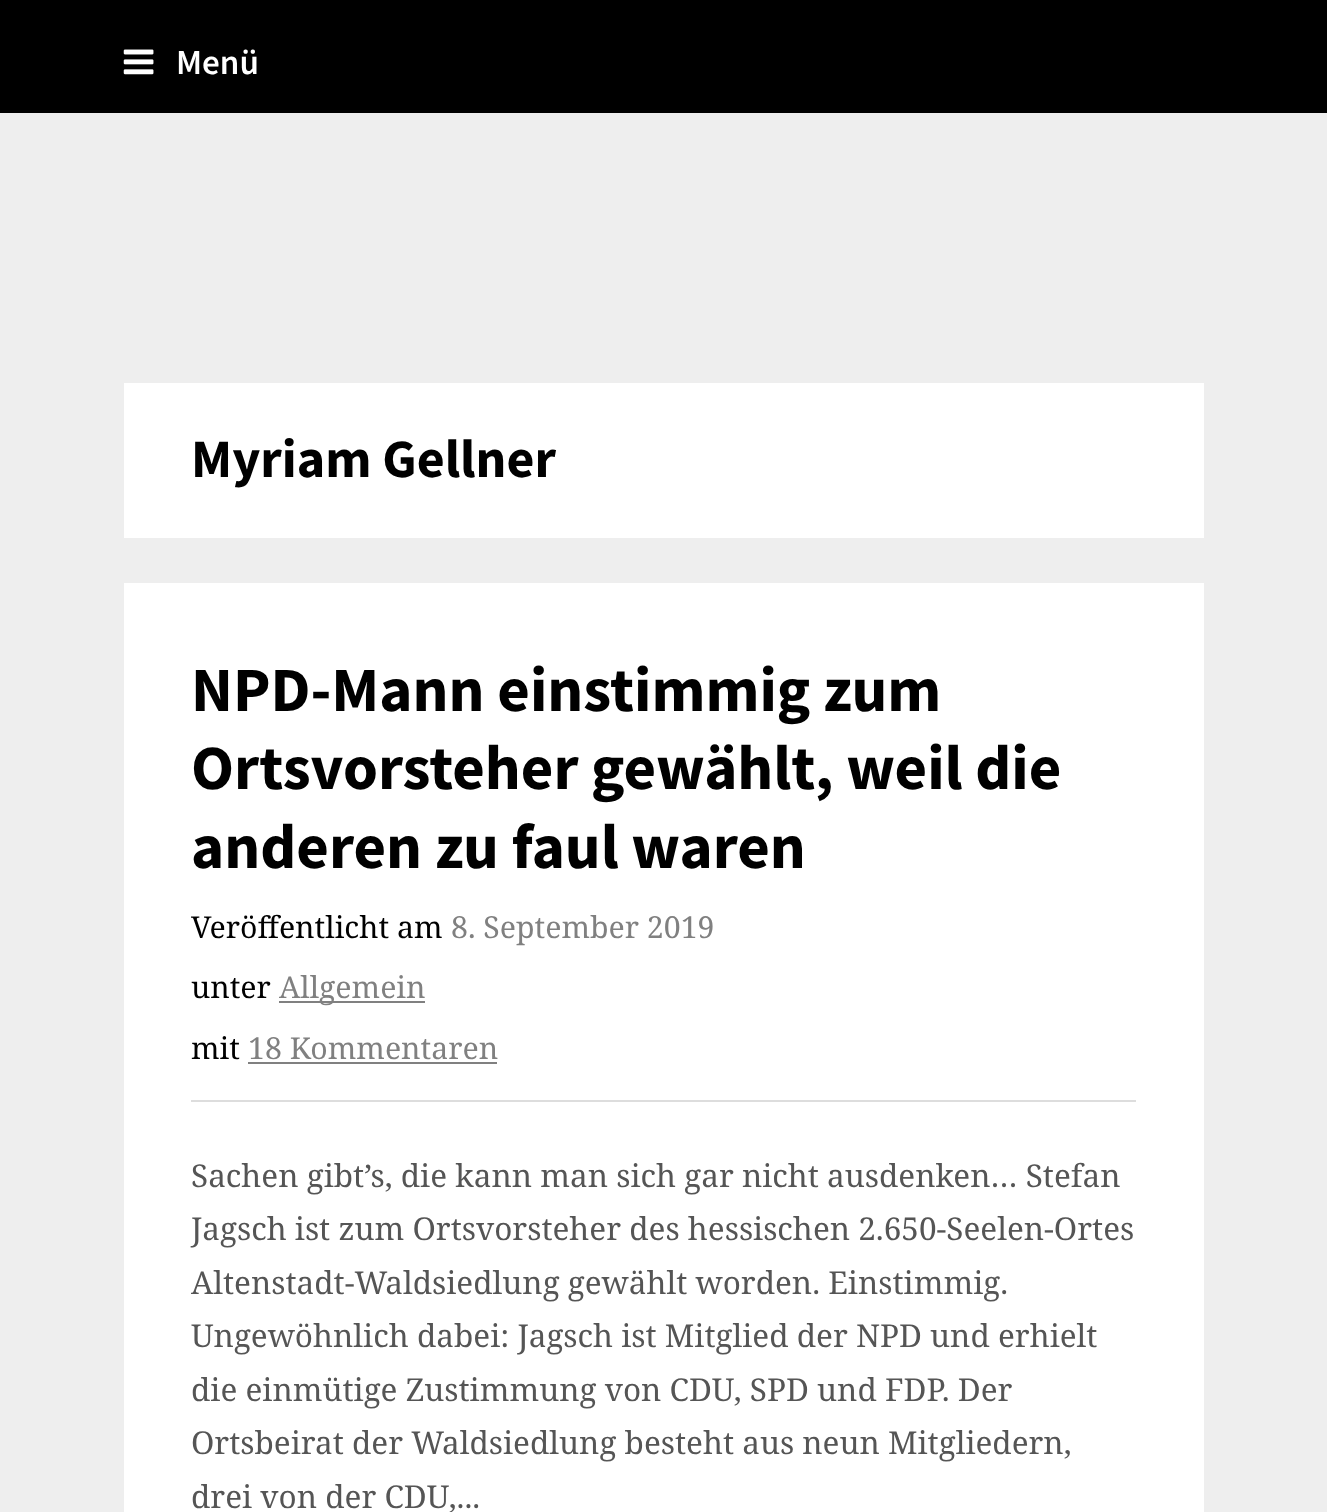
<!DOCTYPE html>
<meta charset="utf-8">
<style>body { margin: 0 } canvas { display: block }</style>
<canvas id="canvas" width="1327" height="1512"></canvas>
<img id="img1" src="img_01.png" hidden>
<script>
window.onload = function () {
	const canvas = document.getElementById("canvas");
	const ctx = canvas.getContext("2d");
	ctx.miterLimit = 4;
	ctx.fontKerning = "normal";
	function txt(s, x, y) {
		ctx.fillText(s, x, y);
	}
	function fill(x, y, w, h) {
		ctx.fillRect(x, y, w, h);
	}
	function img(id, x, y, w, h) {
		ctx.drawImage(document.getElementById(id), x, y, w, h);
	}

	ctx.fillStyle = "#EEEEEE";
	fill(0, 0, 1327, 1512);
	ctx.fillStyle = "#000000";
	fill(0, 0, 1327, 113);
	img("img1", 123, 49, 31, 26);
	ctx.fillStyle = "#FFFFFF";
	fill(124, 383, 1080, 155);
	fill(124, 583, 1080, 929);
	ctx.fillStyle = "#DDDDDD";
	fill(191, 1100, 945, 2);
	ctx.fillStyle = "#808080";
	fill(279, 1001, 146, 2);
	fill(248, 1062, 249, 2);
	ctx.font = "600 35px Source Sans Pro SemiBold";
	ctx.fillStyle = "#FFFFFF";
	txt("Menü", 176, 74);
	ctx.font = "bold 54px Source Sans Pro";
	ctx.fillStyle = "#000000";
	txt("Myriam Gellner", 191, 477);
	ctx.font = "bold 63px Source Sans Pro";
	txt("NPD-Mann einstimmig zum", 191, 711);
	txt("Ortsvorsteher gewählt, weil die", 191, 789);
	txt("anderen zu faul waren", 191, 868);
	ctx.font = "30.25px Noto Serif";
	txt("Veröffentlicht am", 191, 938);
	ctx.fillStyle = "#808080";
	txt("8. September 2019", 451, 938);
	ctx.fillStyle = "#000000";
	txt("unter", 191, 998);
	ctx.fillStyle = "#808080";
	txt("Allgemein", 279, 998);
	ctx.fillStyle = "#000000";
	txt("mit", 191, 1059);
	ctx.fillStyle = "#808080";
	txt("18 Kommentaren", 248, 1059);
	ctx.font = "31.5px Noto Serif";
	ctx.fillStyle = "#555555";
	txt("Sachen gibt’s, die kann man sich gar nicht ausdenken… Stefan", 191, 1187);
	txt("Jagsch ist zum Ortsvorsteher des hessischen 2.650-Seelen-Ortes", 191, 1240);
	txt("Altenstadt-Waldsiedlung gewählt worden. Einstimmig.", 191, 1294);
	txt("Ungewöhnlich dabei: Jagsch ist Mitglied der NPD und erhielt", 191, 1347);
	txt("die einmütige Zustimmung von CDU, SPD und FDP. Der", 191, 1401);
	txt("Ortsbeirat der Waldsiedlung besteht aus neun Mitgliedern,", 191, 1454);
	txt("drei von der CDU,...", 191, 1508);
};
</script>
